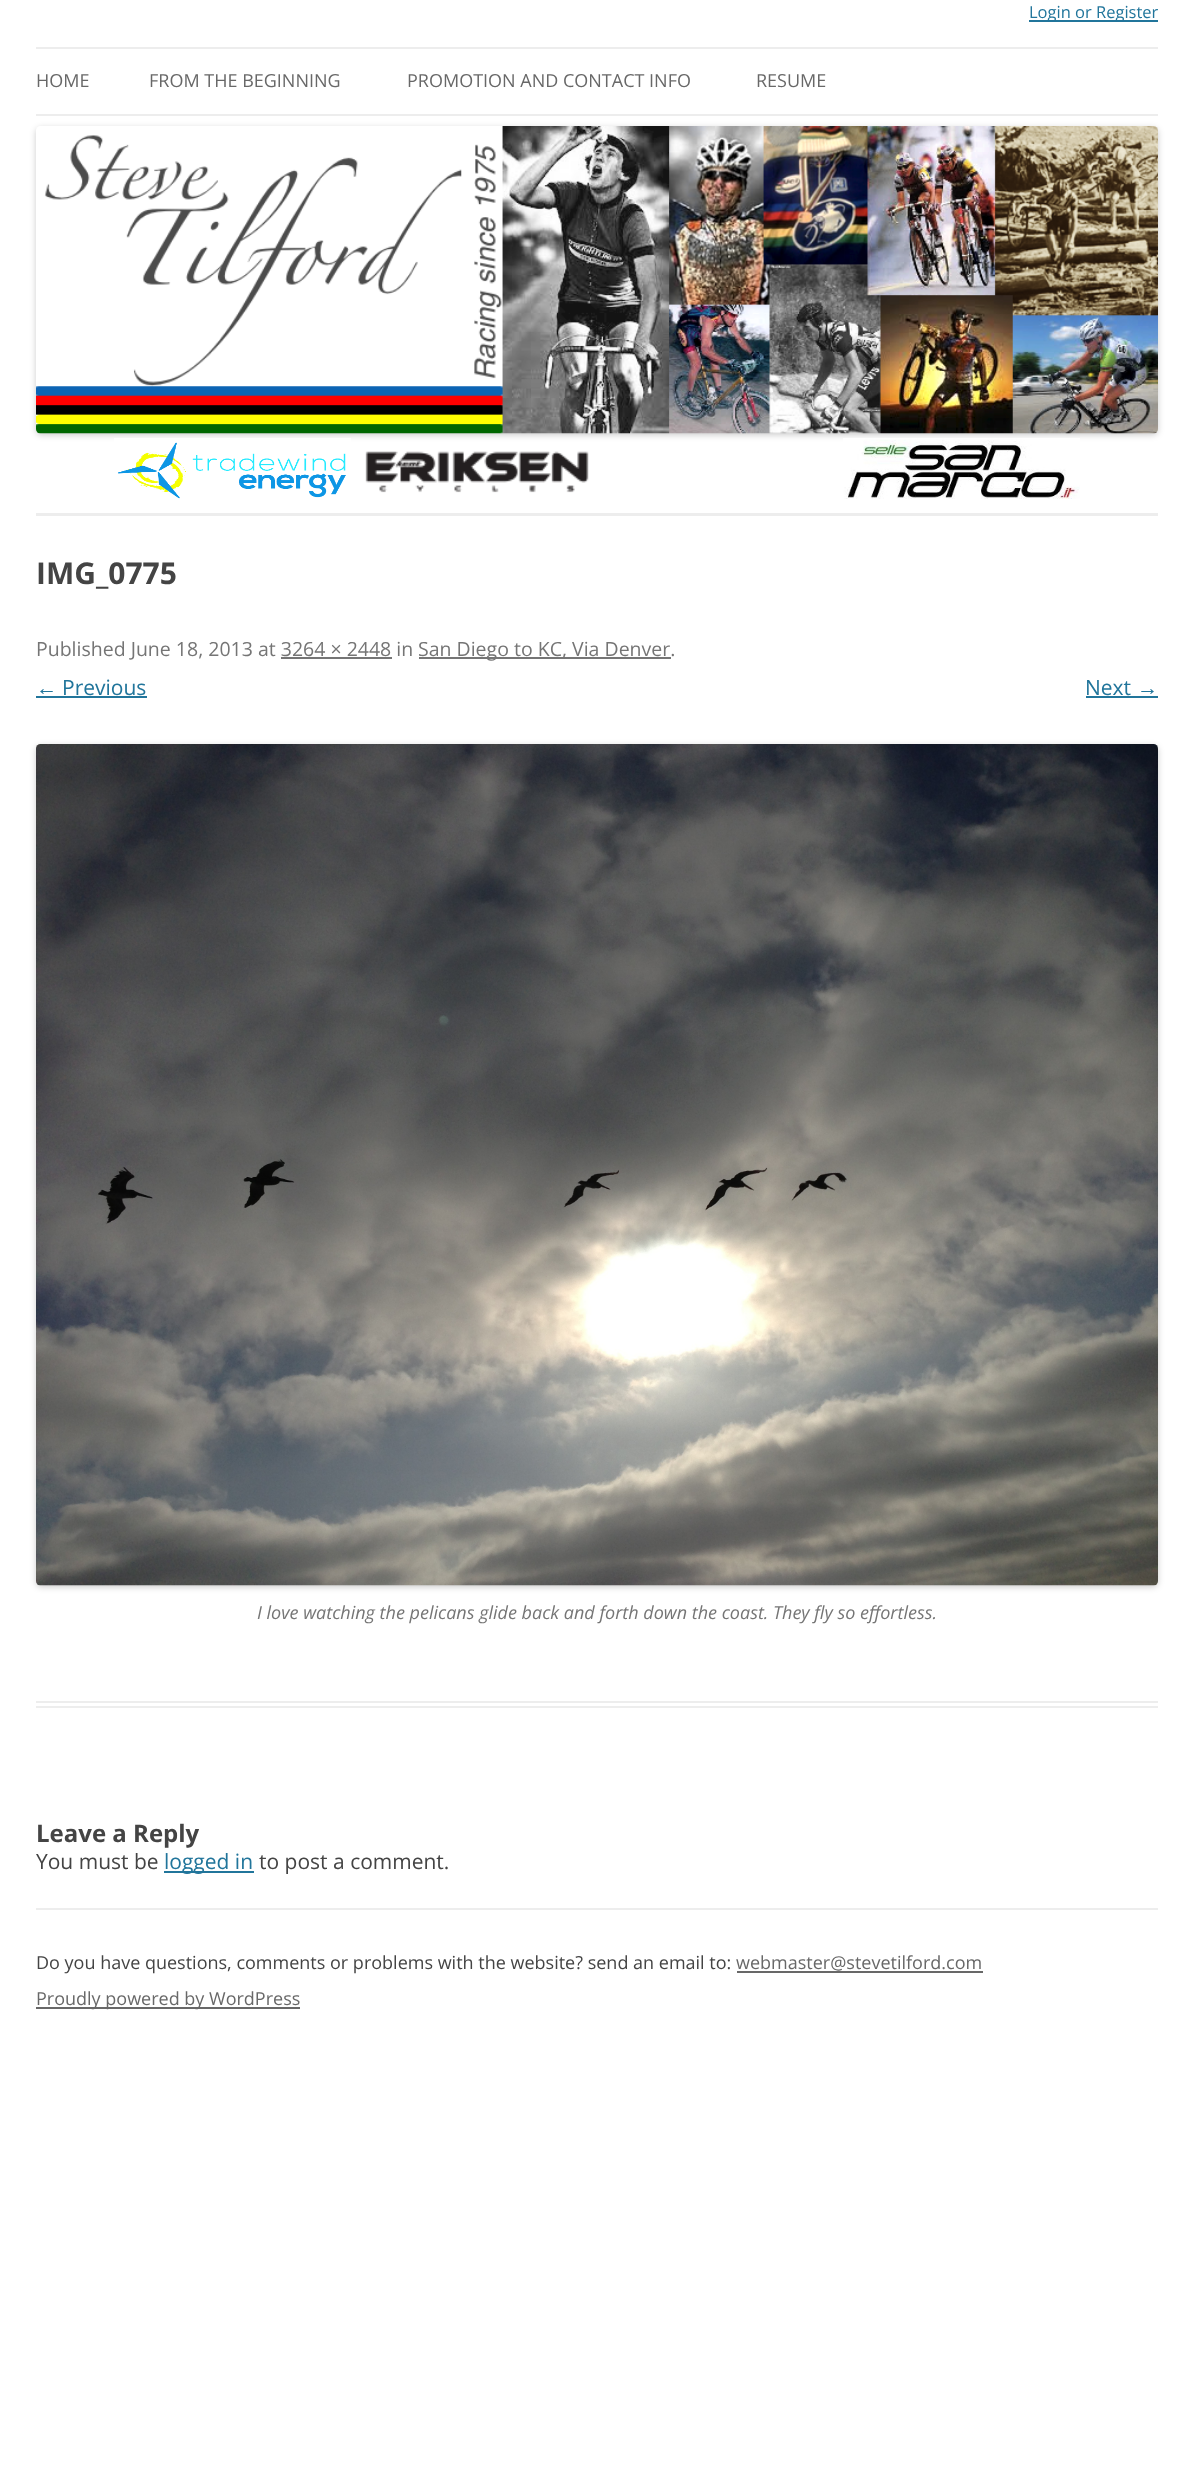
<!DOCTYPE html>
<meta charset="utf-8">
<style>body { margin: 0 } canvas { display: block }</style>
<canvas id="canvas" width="1194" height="2473"></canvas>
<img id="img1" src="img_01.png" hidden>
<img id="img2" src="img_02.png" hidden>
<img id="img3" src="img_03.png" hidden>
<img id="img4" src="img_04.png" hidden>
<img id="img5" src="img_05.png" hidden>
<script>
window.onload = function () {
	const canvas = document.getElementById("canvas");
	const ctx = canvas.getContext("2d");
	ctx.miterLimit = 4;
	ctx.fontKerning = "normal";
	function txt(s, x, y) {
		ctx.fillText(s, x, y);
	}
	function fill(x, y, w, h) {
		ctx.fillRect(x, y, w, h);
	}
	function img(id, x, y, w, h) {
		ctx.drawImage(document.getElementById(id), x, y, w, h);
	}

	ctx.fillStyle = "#FFFFFF";
	fill(0, 0, 1194, 2473);
	ctx.fillStyle = "#EDEDED";
	fill(36, 513, 1122, 3);
	ctx.fillStyle = "#21759B";
	fill(1029, 20, 129, 2);
	ctx.fillStyle = "#EDEDED";
	fill(36, 47, 1122, 2);
	fill(36, 114, 1122, 2);
	ctx.fillStyle = "rgba(0, 0, 0, 0.2)";
	ctx.filter = "blur(3px)";
	ctx.beginPath();
	ctx.roundRect(36, 128, 1122, 307, 5);
	ctx.fill();
	ctx.filter = "none";
	img("img1", 36, 126, 1122, 308);
	img("img2", 114, 438, 237, 61);
	img("img3", 365, 451, 224, 42);
	img("img4", 843, 438, 237, 61);
	ctx.fillStyle = "#EDEDED";
	fill(36, 1701, 1122, 2);
	fill(36, 1706, 1122, 2);
	ctx.fillStyle = "#757575";
	fill(419, 657, 252, 2);
	fill(281, 657, 111, 2);
	ctx.fillStyle = "#21759B";
	fill(36, 696, 111, 2);
	fill(1086, 696, 72, 2);
	ctx.fillStyle = "rgba(0, 0, 0, 0.2)";
	ctx.filter = "blur(3px)";
	ctx.beginPath();
	ctx.roundRect(36, 746, 1122, 841, 5);
	ctx.fill();
	ctx.filter = "none";
	img("img5", 36, 744, 1122, 842);
	ctx.fillStyle = "#21759B";
	fill(164, 1871, 90, 2);
	ctx.fillStyle = "#EDEDED";
	fill(36, 1908, 1122, 2);
	ctx.fillStyle = "#686868";
	fill(737, 1971, 246, 2);
	fill(36, 2007, 264, 2);
	ctx.font = "16.5px Open Sans";
	ctx.fillStyle = "#21759B";
	txt("Login or Register", 1029, 18);
	ctx.font = "18px Open Sans";
	ctx.fillStyle = "#686868";
	txt("HOME", 36, 87);
	txt("FROM THE BEGINNING", 149, 87);
	txt("PROMOTION AND CONTACT INFO", 407, 87);
	txt("RESUME", 756, 87);
	ctx.font = "bold 30px Open Sans";
	ctx.fillStyle = "#444444";
	txt("IMG_0775", 36, 584);
	ctx.font = "19.5px Open Sans";
	ctx.fillStyle = "#757575";
	txt("Published June 18, 2013 at 3264 × 2448 in", 36, 656);
	txt("San Diego to KC, Via Denver.", 418, 656);
	ctx.font = "21px Liberation Sans";
	ctx.fillStyle = "#21759B";
	txt("←", 36, 695);
	ctx.font = "21px Open Sans";
	txt("Previous", 62, 695);
	txt("Next", 1085, 695);
	ctx.font = "21px Liberation Sans";
	txt("→", 1137, 695);
	ctx.font = "italic 18px Open Sans";
	ctx.fillStyle = "#757575";
	txt("I love watching the pelicans glide back and forth down the coast. They fly so effortless.", 257, 1619);
	ctx.font = "bold 24px Open Sans";
	ctx.fillStyle = "#444444";
	txt("Leave a Reply", 36, 1842);
	ctx.font = "21px Open Sans";
	txt("You must be", 36, 1869);
	ctx.fillStyle = "#21759B";
	txt("logged in", 164, 1869);
	ctx.fillStyle = "#444444";
	txt("to post a comment.", 259, 1869);
	ctx.font = "18px Open Sans";
	txt("Do you have questions, comments or problems with the website? send an email to:", 36, 1969);
	ctx.fillStyle = "#686868";
	txt("webmaster@stevetilford.com", 736, 1969);
	txt("Proudly powered by WordPress", 36, 2005);
};
</script>
